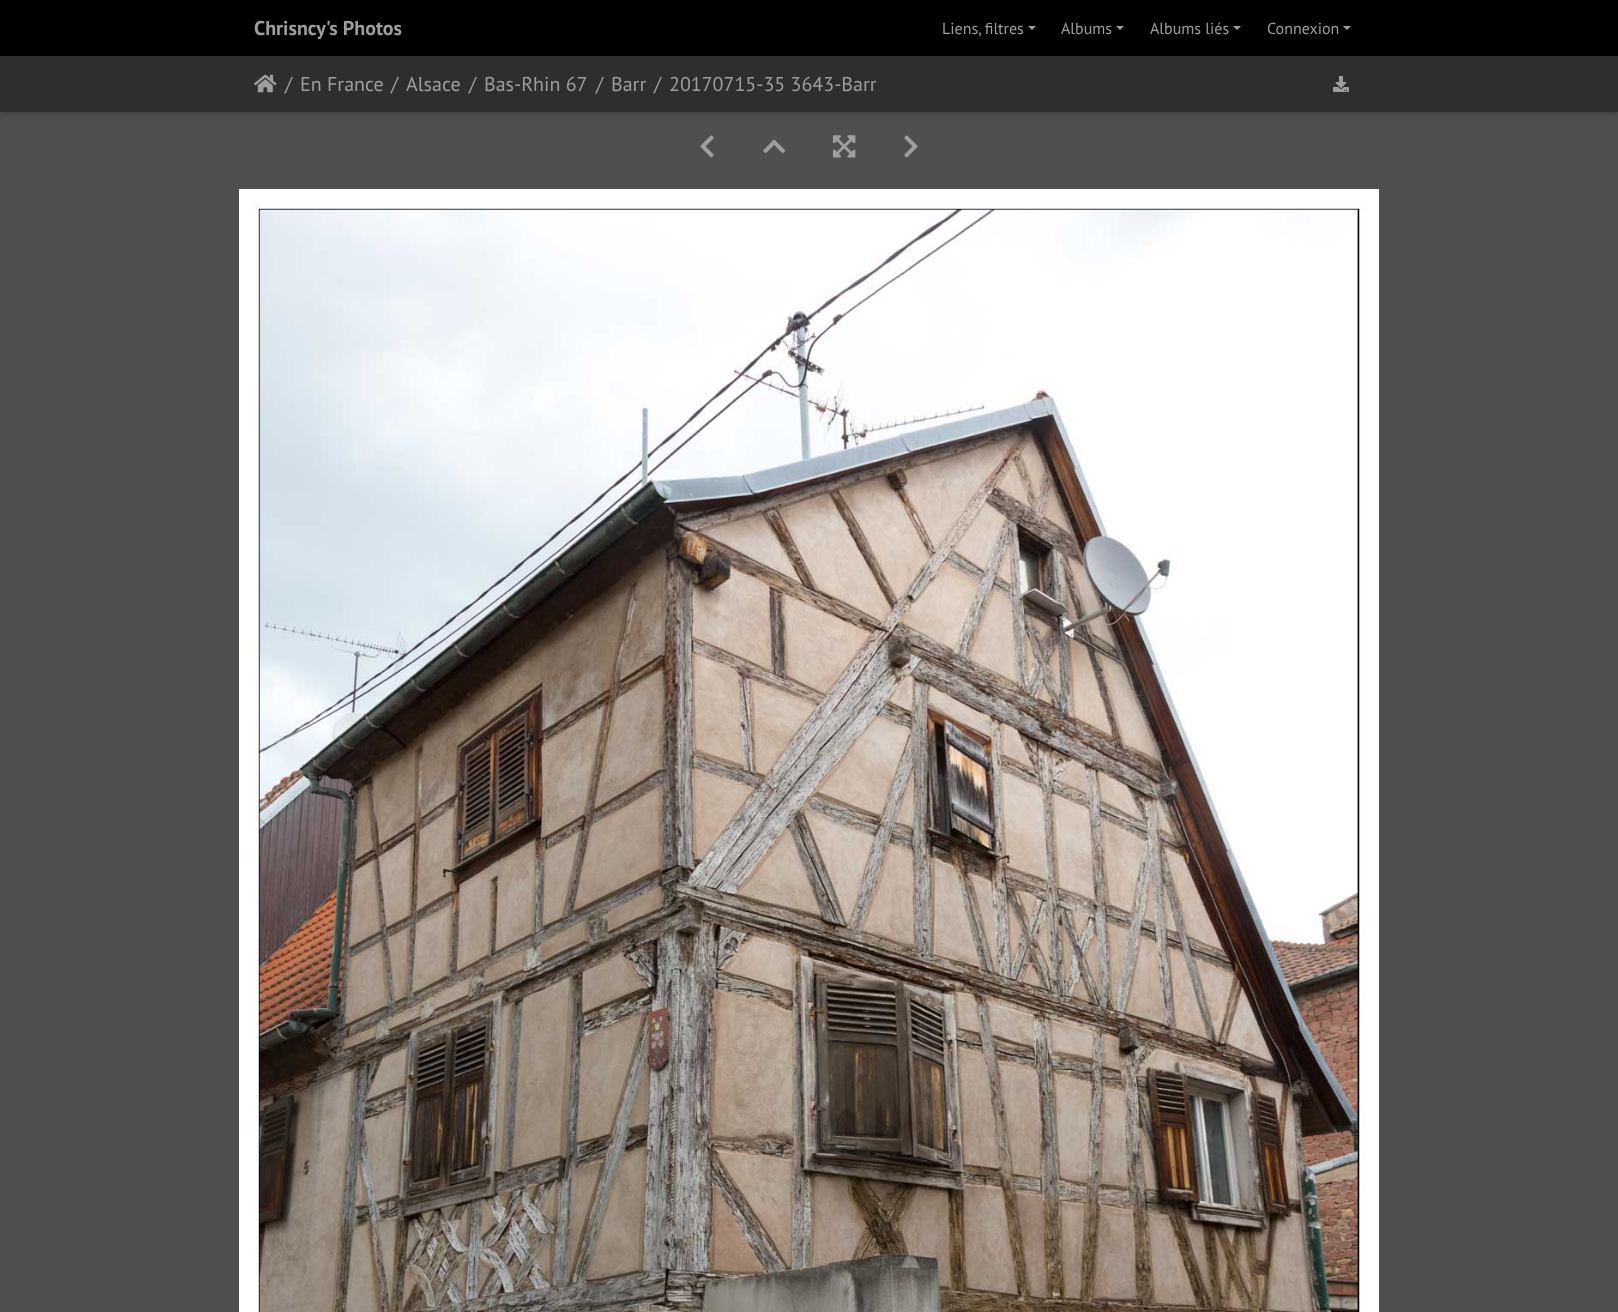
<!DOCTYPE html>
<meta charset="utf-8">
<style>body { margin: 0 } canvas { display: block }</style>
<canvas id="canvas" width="1618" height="1312"></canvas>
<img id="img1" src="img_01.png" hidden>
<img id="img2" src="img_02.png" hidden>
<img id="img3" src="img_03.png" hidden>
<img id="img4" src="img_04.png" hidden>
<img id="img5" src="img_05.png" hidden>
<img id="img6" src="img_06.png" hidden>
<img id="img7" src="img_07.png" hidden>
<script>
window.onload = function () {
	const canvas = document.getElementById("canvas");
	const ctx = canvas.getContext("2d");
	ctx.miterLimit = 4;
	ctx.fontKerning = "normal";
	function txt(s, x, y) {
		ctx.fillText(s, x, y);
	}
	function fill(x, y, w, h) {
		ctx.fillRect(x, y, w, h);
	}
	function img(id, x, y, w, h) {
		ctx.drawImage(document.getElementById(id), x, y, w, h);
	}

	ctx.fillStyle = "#4F4F4F";
	fill(0, 0, 1618, 1312);
	ctx.fillStyle = "rgba(0, 0, 0, 0.2)";
	ctx.filter = "blur(2.5px)";
	ctx.beginPath();
	ctx.rect(1, 60, 1616, 54);
	ctx.fill();
	ctx.filter = "none";
	ctx.fillStyle = "#000000";
	fill(0, 0, 1618, 56);
	ctx.fillStyle = "#9E9E9E";
	ctx.beginPath();
	ctx.moveTo(1028, 26);
	ctx.lineTo(1036, 26);
	ctx.lineTo(1032, 30);
	ctx.closePath();
	ctx.fill();
	ctx.beginPath();
	ctx.moveTo(1116, 26);
	ctx.lineTo(1124, 26);
	ctx.lineTo(1120, 30);
	ctx.closePath();
	ctx.fill();
	ctx.beginPath();
	ctx.moveTo(1233, 26);
	ctx.lineTo(1241, 26);
	ctx.lineTo(1237, 30);
	ctx.closePath();
	ctx.fill();
	ctx.beginPath();
	ctx.moveTo(1343, 26);
	ctx.lineTo(1351, 26);
	ctx.lineTo(1347, 30);
	ctx.closePath();
	ctx.fill();
	ctx.fillStyle = "#2E2E2E";
	fill(0, 56, 1618, 56);
	img("img1", 254, 74, 23, 19);
	img("img2", 1333, 76, 16, 16);
	img("img3", 700, 135, 14, 23);
	img("img4", 763, 139, 22, 14);
	img("img5", 833, 135, 23, 23);
	img("img6", 904, 135, 14, 23);
	img("img7", 239, 189, 1140, 1123);
	ctx.font = "bold 20px PT Sans";
	ctx.fillStyle = "#9E9E9E";
	txt("Chrisncy's Photos", 254, 35);
	ctx.font = "16px PT Sans";
	txt("Liens, filtres", 942, 34);
	txt("Albums", 1061, 34);
	txt("Albums liés", 1150, 34);
	txt("Connexion", 1267, 34);
	ctx.font = "20px PT Sans";
	txt("/", 285, 91);
	txt("En France", 300, 91);
	txt("/", 391, 91);
	txt("Alsace", 406, 91);
	txt("/", 469, 91);
	txt("Bas-Rhin 67", 484, 91);
	txt("/", 596, 91);
	txt("Barr", 611, 91);
	txt("/", 654, 91);
	txt("20170715-35 3643-Barr", 669, 91);
};
</script>
